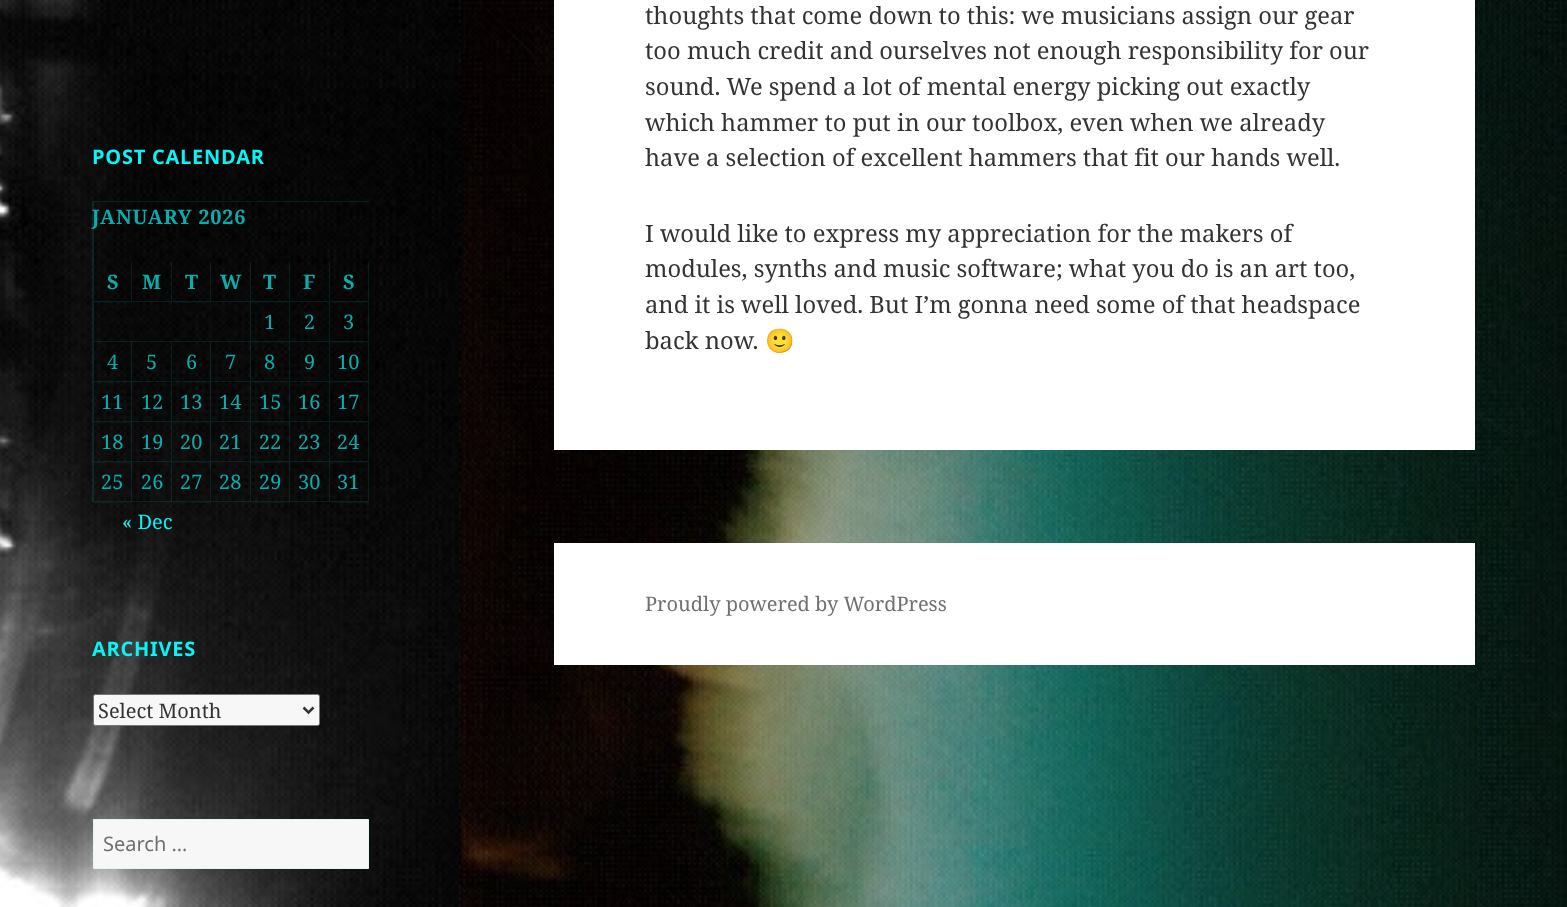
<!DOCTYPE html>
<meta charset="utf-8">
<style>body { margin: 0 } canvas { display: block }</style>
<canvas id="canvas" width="1567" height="907"></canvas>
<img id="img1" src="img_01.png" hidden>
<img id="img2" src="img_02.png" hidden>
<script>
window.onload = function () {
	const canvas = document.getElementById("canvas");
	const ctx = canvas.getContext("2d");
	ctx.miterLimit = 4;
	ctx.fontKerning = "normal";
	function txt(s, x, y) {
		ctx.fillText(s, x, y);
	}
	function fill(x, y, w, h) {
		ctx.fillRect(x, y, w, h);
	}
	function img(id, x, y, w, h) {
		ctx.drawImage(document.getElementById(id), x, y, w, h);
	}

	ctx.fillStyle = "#FFFFFF";
	fill(0, 0, 1567, 907);
	img("img1", 460, 0, 1107, 907);
	img("img2", 0, 0, 461, 907);
	ctx.fillStyle = "rgba(9, 244, 244, 0.1)";
	ctx.beginPath();
	ctx.moveTo(92, 201);
	ctx.lineTo(369, 201);
	ctx.lineTo(369, 202);
	ctx.lineTo(94, 202);
	ctx.closePath();
	ctx.fill();
	ctx.beginPath();
	ctx.moveTo(92, 502);
	ctx.lineTo(92, 201);
	ctx.lineTo(94, 202);
	ctx.lineTo(94, 502);
	ctx.closePath();
	ctx.fill();
	ctx.beginPath();
	ctx.moveTo(132, 262);
	ctx.lineTo(132, 302);
	ctx.lineTo(131, 301);
	ctx.lineTo(131, 262);
	ctx.closePath();
	ctx.fill();
	ctx.beginPath();
	ctx.moveTo(132.5, 302.5);
	ctx.lineTo(94, 302.5);
	ctx.lineTo(94, 301);
	ctx.lineTo(131, 301);
	ctx.closePath();
	ctx.fill();
	ctx.beginPath();
	ctx.moveTo(172, 262);
	ctx.lineTo(172, 302);
	ctx.lineTo(171, 301);
	ctx.lineTo(171, 262);
	ctx.closePath();
	ctx.fill();
	ctx.beginPath();
	ctx.moveTo(172, 302);
	ctx.lineTo(132, 302);
	ctx.lineTo(132, 301);
	ctx.lineTo(171, 301);
	ctx.closePath();
	ctx.fill();
	ctx.beginPath();
	ctx.moveTo(211, 262);
	ctx.lineTo(211, 302);
	ctx.lineTo(210, 301);
	ctx.lineTo(210, 262);
	ctx.closePath();
	ctx.fill();
	ctx.beginPath();
	ctx.moveTo(211, 302.5);
	ctx.lineTo(172.5, 302.5);
	ctx.lineTo(172.5, 301);
	ctx.lineTo(210, 301);
	ctx.closePath();
	ctx.fill();
	ctx.beginPath();
	ctx.moveTo(251, 262);
	ctx.lineTo(251, 302);
	ctx.lineTo(250, 301);
	ctx.lineTo(250, 262);
	ctx.closePath();
	ctx.fill();
	ctx.beginPath();
	ctx.moveTo(251, 302);
	ctx.lineTo(211, 302);
	ctx.lineTo(211, 301);
	ctx.lineTo(250, 301);
	ctx.closePath();
	ctx.fill();
	ctx.beginPath();
	ctx.moveTo(290, 262);
	ctx.lineTo(290, 302);
	ctx.lineTo(289, 301);
	ctx.lineTo(289, 262);
	ctx.closePath();
	ctx.fill();
	ctx.beginPath();
	ctx.moveTo(290, 302.5);
	ctx.lineTo(251, 302.5);
	ctx.lineTo(251, 301);
	ctx.lineTo(289, 301);
	ctx.closePath();
	ctx.fill();
	ctx.beginPath();
	ctx.moveTo(330, 262);
	ctx.lineTo(330, 302);
	ctx.lineTo(329, 301);
	ctx.lineTo(329, 262);
	ctx.closePath();
	ctx.fill();
	ctx.beginPath();
	ctx.moveTo(330, 302);
	ctx.lineTo(290, 302);
	ctx.lineTo(290, 301);
	ctx.lineTo(329, 301);
	ctx.closePath();
	ctx.fill();
	ctx.beginPath();
	ctx.moveTo(369, 262);
	ctx.lineTo(369, 302);
	ctx.lineTo(368, 301);
	ctx.lineTo(368, 262);
	ctx.closePath();
	ctx.fill();
	ctx.beginPath();
	ctx.moveTo(369, 302.5);
	ctx.lineTo(330, 302.5);
	ctx.lineTo(330, 301);
	ctx.lineTo(367.5, 301);
	ctx.closePath();
	ctx.fill();
	ctx.beginPath();
	ctx.moveTo(251, 302);
	ctx.lineTo(251, 342);
	ctx.lineTo(250, 341);
	ctx.lineTo(250, 302);
	ctx.closePath();
	ctx.fill();
	ctx.beginPath();
	ctx.moveTo(251, 342);
	ctx.lineTo(94, 342);
	ctx.lineTo(94, 341);
	ctx.lineTo(250, 341);
	ctx.closePath();
	ctx.fill();
	ctx.beginPath();
	ctx.moveTo(290, 302);
	ctx.lineTo(290, 342);
	ctx.lineTo(289, 341);
	ctx.lineTo(289, 302);
	ctx.closePath();
	ctx.fill();
	ctx.beginPath();
	ctx.moveTo(290, 342.5);
	ctx.lineTo(251, 342.5);
	ctx.lineTo(251, 341);
	ctx.lineTo(289, 341);
	ctx.closePath();
	ctx.fill();
	ctx.beginPath();
	ctx.moveTo(330, 302);
	ctx.lineTo(330, 342);
	ctx.lineTo(329, 341);
	ctx.lineTo(329, 302);
	ctx.closePath();
	ctx.fill();
	ctx.beginPath();
	ctx.moveTo(330, 342);
	ctx.lineTo(290, 342);
	ctx.lineTo(290, 341);
	ctx.lineTo(329, 341);
	ctx.closePath();
	ctx.fill();
	ctx.beginPath();
	ctx.moveTo(369, 302);
	ctx.lineTo(369, 342);
	ctx.lineTo(368, 341);
	ctx.lineTo(368, 302);
	ctx.closePath();
	ctx.fill();
	ctx.beginPath();
	ctx.moveTo(369, 342.5);
	ctx.lineTo(330, 342.5);
	ctx.lineTo(330, 341);
	ctx.lineTo(367.5, 341);
	ctx.closePath();
	ctx.fill();
	ctx.beginPath();
	ctx.moveTo(132, 342);
	ctx.lineTo(132, 382);
	ctx.lineTo(131, 381);
	ctx.lineTo(131, 342);
	ctx.closePath();
	ctx.fill();
	ctx.beginPath();
	ctx.moveTo(132.5, 382.5);
	ctx.lineTo(94, 382.5);
	ctx.lineTo(94, 381);
	ctx.lineTo(131, 381);
	ctx.closePath();
	ctx.fill();
	ctx.beginPath();
	ctx.moveTo(172, 342);
	ctx.lineTo(172, 382);
	ctx.lineTo(171, 381);
	ctx.lineTo(171, 342);
	ctx.closePath();
	ctx.fill();
	ctx.beginPath();
	ctx.moveTo(172, 382);
	ctx.lineTo(132, 382);
	ctx.lineTo(132, 381);
	ctx.lineTo(171, 381);
	ctx.closePath();
	ctx.fill();
	ctx.beginPath();
	ctx.moveTo(211, 342);
	ctx.lineTo(211, 382);
	ctx.lineTo(210, 381);
	ctx.lineTo(210, 342);
	ctx.closePath();
	ctx.fill();
	ctx.beginPath();
	ctx.moveTo(211, 382.5);
	ctx.lineTo(172.5, 382.5);
	ctx.lineTo(172.5, 381);
	ctx.lineTo(210, 381);
	ctx.closePath();
	ctx.fill();
	ctx.beginPath();
	ctx.moveTo(251, 342);
	ctx.lineTo(251, 382);
	ctx.lineTo(250, 381);
	ctx.lineTo(250, 342);
	ctx.closePath();
	ctx.fill();
	ctx.beginPath();
	ctx.moveTo(251, 382);
	ctx.lineTo(211, 382);
	ctx.lineTo(211, 381);
	ctx.lineTo(250, 381);
	ctx.closePath();
	ctx.fill();
	ctx.beginPath();
	ctx.moveTo(290, 342);
	ctx.lineTo(290, 382);
	ctx.lineTo(289, 381);
	ctx.lineTo(289, 342);
	ctx.closePath();
	ctx.fill();
	ctx.beginPath();
	ctx.moveTo(290, 382.5);
	ctx.lineTo(251, 382.5);
	ctx.lineTo(251, 381);
	ctx.lineTo(289, 381);
	ctx.closePath();
	ctx.fill();
	ctx.beginPath();
	ctx.moveTo(330, 342);
	ctx.lineTo(330, 382);
	ctx.lineTo(329, 381);
	ctx.lineTo(329, 342);
	ctx.closePath();
	ctx.fill();
	ctx.beginPath();
	ctx.moveTo(330, 382);
	ctx.lineTo(290, 382);
	ctx.lineTo(290, 381);
	ctx.lineTo(329, 381);
	ctx.closePath();
	ctx.fill();
	ctx.beginPath();
	ctx.moveTo(369, 342);
	ctx.lineTo(369, 382);
	ctx.lineTo(368, 381);
	ctx.lineTo(368, 342);
	ctx.closePath();
	ctx.fill();
	ctx.beginPath();
	ctx.moveTo(369, 382.5);
	ctx.lineTo(330, 382.5);
	ctx.lineTo(330, 381);
	ctx.lineTo(367.5, 381);
	ctx.closePath();
	ctx.fill();
	ctx.beginPath();
	ctx.moveTo(132, 382);
	ctx.lineTo(132, 422);
	ctx.lineTo(131, 421);
	ctx.lineTo(131, 382);
	ctx.closePath();
	ctx.fill();
	ctx.beginPath();
	ctx.moveTo(132.5, 422.5);
	ctx.lineTo(94, 422.5);
	ctx.lineTo(94, 421);
	ctx.lineTo(131, 421);
	ctx.closePath();
	ctx.fill();
	ctx.beginPath();
	ctx.moveTo(172, 382);
	ctx.lineTo(172, 422);
	ctx.lineTo(171, 421);
	ctx.lineTo(171, 382);
	ctx.closePath();
	ctx.fill();
	ctx.beginPath();
	ctx.moveTo(172, 422);
	ctx.lineTo(132, 422);
	ctx.lineTo(132, 421);
	ctx.lineTo(171, 421);
	ctx.closePath();
	ctx.fill();
	ctx.beginPath();
	ctx.moveTo(211, 382);
	ctx.lineTo(211, 422);
	ctx.lineTo(210, 421);
	ctx.lineTo(210, 382);
	ctx.closePath();
	ctx.fill();
	ctx.beginPath();
	ctx.moveTo(211, 422.5);
	ctx.lineTo(172.5, 422.5);
	ctx.lineTo(172.5, 421);
	ctx.lineTo(210, 421);
	ctx.closePath();
	ctx.fill();
	ctx.beginPath();
	ctx.moveTo(251, 382);
	ctx.lineTo(251, 422);
	ctx.lineTo(250, 421);
	ctx.lineTo(250, 382);
	ctx.closePath();
	ctx.fill();
	ctx.beginPath();
	ctx.moveTo(251, 422);
	ctx.lineTo(211, 422);
	ctx.lineTo(211, 421);
	ctx.lineTo(250, 421);
	ctx.closePath();
	ctx.fill();
	ctx.beginPath();
	ctx.moveTo(290, 382);
	ctx.lineTo(290, 422);
	ctx.lineTo(289, 421);
	ctx.lineTo(289, 382);
	ctx.closePath();
	ctx.fill();
	ctx.beginPath();
	ctx.moveTo(290, 422.5);
	ctx.lineTo(251, 422.5);
	ctx.lineTo(251, 421);
	ctx.lineTo(289, 421);
	ctx.closePath();
	ctx.fill();
	ctx.beginPath();
	ctx.moveTo(330, 382);
	ctx.lineTo(330, 422);
	ctx.lineTo(329, 421);
	ctx.lineTo(329, 382);
	ctx.closePath();
	ctx.fill();
	ctx.beginPath();
	ctx.moveTo(330, 422);
	ctx.lineTo(290, 422);
	ctx.lineTo(290, 421);
	ctx.lineTo(329, 421);
	ctx.closePath();
	ctx.fill();
	ctx.beginPath();
	ctx.moveTo(369, 382);
	ctx.lineTo(369, 422);
	ctx.lineTo(368, 421);
	ctx.lineTo(368, 382);
	ctx.closePath();
	ctx.fill();
	ctx.beginPath();
	ctx.moveTo(369, 422.5);
	ctx.lineTo(330, 422.5);
	ctx.lineTo(330, 421);
	ctx.lineTo(367.5, 421);
	ctx.closePath();
	ctx.fill();
	ctx.beginPath();
	ctx.moveTo(132, 422);
	ctx.lineTo(132, 462);
	ctx.lineTo(131, 461);
	ctx.lineTo(131, 422);
	ctx.closePath();
	ctx.fill();
	ctx.beginPath();
	ctx.moveTo(132.5, 462.5);
	ctx.lineTo(94, 462.5);
	ctx.lineTo(94, 461);
	ctx.lineTo(131, 461);
	ctx.closePath();
	ctx.fill();
	ctx.beginPath();
	ctx.moveTo(172, 422);
	ctx.lineTo(172, 462);
	ctx.lineTo(171, 461);
	ctx.lineTo(171, 422);
	ctx.closePath();
	ctx.fill();
	ctx.beginPath();
	ctx.moveTo(172, 462);
	ctx.lineTo(132, 462);
	ctx.lineTo(132, 461);
	ctx.lineTo(171, 461);
	ctx.closePath();
	ctx.fill();
	ctx.beginPath();
	ctx.moveTo(211, 422);
	ctx.lineTo(211, 462);
	ctx.lineTo(210, 461);
	ctx.lineTo(210, 422);
	ctx.closePath();
	ctx.fill();
	ctx.beginPath();
	ctx.moveTo(211, 462.5);
	ctx.lineTo(172.5, 462.5);
	ctx.lineTo(172.5, 461);
	ctx.lineTo(210, 461);
	ctx.closePath();
	ctx.fill();
	ctx.beginPath();
	ctx.moveTo(251, 422);
	ctx.lineTo(251, 462);
	ctx.lineTo(250, 461);
	ctx.lineTo(250, 422);
	ctx.closePath();
	ctx.fill();
	ctx.beginPath();
	ctx.moveTo(251, 462);
	ctx.lineTo(211, 462);
	ctx.lineTo(211, 461);
	ctx.lineTo(250, 461);
	ctx.closePath();
	ctx.fill();
	ctx.beginPath();
	ctx.moveTo(290, 422);
	ctx.lineTo(290, 462);
	ctx.lineTo(289, 461);
	ctx.lineTo(289, 422);
	ctx.closePath();
	ctx.fill();
	ctx.beginPath();
	ctx.moveTo(290, 462.5);
	ctx.lineTo(251, 462.5);
	ctx.lineTo(251, 461);
	ctx.lineTo(289, 461);
	ctx.closePath();
	ctx.fill();
	ctx.beginPath();
	ctx.moveTo(330, 422);
	ctx.lineTo(330, 462);
	ctx.lineTo(329, 461);
	ctx.lineTo(329, 422);
	ctx.closePath();
	ctx.fill();
	ctx.beginPath();
	ctx.moveTo(330, 462);
	ctx.lineTo(290, 462);
	ctx.lineTo(290, 461);
	ctx.lineTo(329, 461);
	ctx.closePath();
	ctx.fill();
	ctx.beginPath();
	ctx.moveTo(369, 422);
	ctx.lineTo(369, 462);
	ctx.lineTo(368, 461);
	ctx.lineTo(368, 422);
	ctx.closePath();
	ctx.fill();
	ctx.beginPath();
	ctx.moveTo(369, 462.5);
	ctx.lineTo(330, 462.5);
	ctx.lineTo(330, 461);
	ctx.lineTo(367.5, 461);
	ctx.closePath();
	ctx.fill();
	ctx.beginPath();
	ctx.moveTo(132, 462);
	ctx.lineTo(132, 502);
	ctx.lineTo(131, 501);
	ctx.lineTo(131, 462);
	ctx.closePath();
	ctx.fill();
	ctx.beginPath();
	ctx.moveTo(132.5, 502.5);
	ctx.lineTo(94, 502.5);
	ctx.lineTo(94, 501);
	ctx.lineTo(131, 501);
	ctx.closePath();
	ctx.fill();
	ctx.beginPath();
	ctx.moveTo(172, 462);
	ctx.lineTo(172, 502);
	ctx.lineTo(171, 501);
	ctx.lineTo(171, 462);
	ctx.closePath();
	ctx.fill();
	ctx.beginPath();
	ctx.moveTo(172, 502);
	ctx.lineTo(132, 502);
	ctx.lineTo(132, 501);
	ctx.lineTo(171, 501);
	ctx.closePath();
	ctx.fill();
	ctx.beginPath();
	ctx.moveTo(211, 462);
	ctx.lineTo(211, 502);
	ctx.lineTo(210, 501);
	ctx.lineTo(210, 462);
	ctx.closePath();
	ctx.fill();
	ctx.beginPath();
	ctx.moveTo(211, 502.5);
	ctx.lineTo(172.5, 502.5);
	ctx.lineTo(172.5, 501);
	ctx.lineTo(210, 501);
	ctx.closePath();
	ctx.fill();
	ctx.beginPath();
	ctx.moveTo(251, 462);
	ctx.lineTo(251, 502);
	ctx.lineTo(250, 501);
	ctx.lineTo(250, 462);
	ctx.closePath();
	ctx.fill();
	ctx.beginPath();
	ctx.moveTo(251, 502);
	ctx.lineTo(211, 502);
	ctx.lineTo(211, 501);
	ctx.lineTo(250, 501);
	ctx.closePath();
	ctx.fill();
	ctx.beginPath();
	ctx.moveTo(290, 462);
	ctx.lineTo(290, 502);
	ctx.lineTo(289, 501);
	ctx.lineTo(289, 462);
	ctx.closePath();
	ctx.fill();
	ctx.beginPath();
	ctx.moveTo(290, 502.5);
	ctx.lineTo(251, 502.5);
	ctx.lineTo(251, 501);
	ctx.lineTo(289, 501);
	ctx.closePath();
	ctx.fill();
	ctx.beginPath();
	ctx.moveTo(330, 462);
	ctx.lineTo(330, 502);
	ctx.lineTo(329, 501);
	ctx.lineTo(329, 462);
	ctx.closePath();
	ctx.fill();
	ctx.beginPath();
	ctx.moveTo(330, 502);
	ctx.lineTo(290, 502);
	ctx.lineTo(290, 501);
	ctx.lineTo(329, 501);
	ctx.closePath();
	ctx.fill();
	ctx.beginPath();
	ctx.moveTo(369, 462);
	ctx.lineTo(369, 502);
	ctx.lineTo(368, 501);
	ctx.lineTo(368, 462);
	ctx.closePath();
	ctx.fill();
	ctx.beginPath();
	ctx.moveTo(369, 502.5);
	ctx.lineTo(330, 502.5);
	ctx.lineTo(330, 501);
	ctx.lineTo(367.5, 501);
	ctx.closePath();
	ctx.fill();
	ctx.fillStyle = "#F7F7F7";
	ctx.beginPath();
	ctx.roundRect(93.5, 694.5, 226, 31, 2);
	ctx.fill();
	ctx.strokeStyle = "#767676";
	ctx.stroke();
	ctx.beginPath();
	ctx.moveTo(303.5, 707.5);
	ctx.lineTo(308.5, 712.5);
	ctx.lineTo(313.5, 707.5);
	ctx.strokeStyle = "#333333";
	ctx.lineWidth = 2.5;
	ctx.stroke();
	ctx.beginPath();
	ctx.rect(93.5, 819.5, 275, 49);
	ctx.fill();
	ctx.strokeStyle = "#DFF7F7";
	ctx.lineWidth = 1;
	ctx.stroke();
	ctx.fillStyle = "#FFFFFF";
	fill(554, 0, 921, 450);
	fill(554, 543, 921, 122);
	ctx.letterSpacing = "0.75px";
	ctx.font = "bold 20px Noto Sans";
	ctx.fillStyle = "#09F4F4";
	txt("POST CALENDAR", 92, 164);
	ctx.font = "bold 20px Noto Serif";
	ctx.fillStyle = "#09ADAD";
	txt("JANUARY 2026", 92, 224);
	ctx.letterSpacing = "0px";
	txt("S", 107, 289);
	txt("M", 142, 289);
	txt("T", 185, 289);
	txt("W", 220, 289);
	txt("T", 263, 289);
	txt("F", 303, 289);
	txt("S", 343, 289);
	ctx.font = "20px Noto Serif";
	txt("1", 264, 329);
	txt("2", 304, 329);
	txt("3", 343, 329);
	txt("4", 107, 369);
	txt("5", 146, 369);
	txt("6", 186, 369);
	txt("7", 225, 369);
	txt("8", 264, 369);
	txt("9", 304, 369);
	txt("10", 337, 369);
	txt("11", 101, 409);
	txt("12", 141, 409);
	txt("13", 180, 409);
	txt("14", 219, 409);
	txt("15", 259, 409);
	txt("16", 298, 409);
	txt("17", 337, 409);
	txt("18", 101, 449);
	txt("19", 141, 449);
	txt("20", 180, 449);
	txt("21", 219, 449);
	txt("22", 259, 449);
	txt("23", 298, 449);
	txt("24", 337, 449);
	txt("25", 101, 489);
	txt("26", 141, 489);
	txt("27", 180, 489);
	txt("28", 219, 489);
	txt("29", 259, 489);
	txt("30", 298, 489);
	txt("31", 337, 489);
	ctx.fillStyle = "#09F4F4";
	txt("« Dec", 122, 529);
	ctx.letterSpacing = "0.75px";
	ctx.font = "bold 20px Noto Sans";
	txt("ARCHIVES", 92, 656);
	ctx.letterSpacing = "0px";
	ctx.font = "20px Noto Serif";
	ctx.fillStyle = "#333333";
	txt("Select Month", 98, 718);
	ctx.font = "20px Noto Sans";
	ctx.fillStyle = "#707070";
	txt("Search …", 103, 851);
	ctx.font = "23.75px Noto Serif";
	ctx.fillStyle = "#333333";
	txt("thoughts that come down to this: we musicians assign our gear", 645, 24);
	txt("too much credit and ourselves not enough responsibility for our", 645, 59);
	txt("sound. We spend a lot of mental energy picking out exactly", 645, 95);
	txt("which hammer to put in our toolbox, even when we already", 645, 131);
	txt("have a selection of excellent hammers that fit our hands well.", 645, 166);
	txt("I would like to express my appreciation for the makers of", 645, 242);
	txt("modules, synths and music software; what you do is an art too,", 645, 277);
	txt("and it is well loved. But I’m gonna need some of that headspace", 645, 313);
	txt("back now.", 645, 349);
	ctx.font = "23.75px Noto Color Emoji";
	txt("🙂", 765, 349);
	ctx.font = "20px Noto Serif";
	ctx.fillStyle = "#707070";
	txt("Proudly powered by WordPress", 645, 611);
};
</script>
